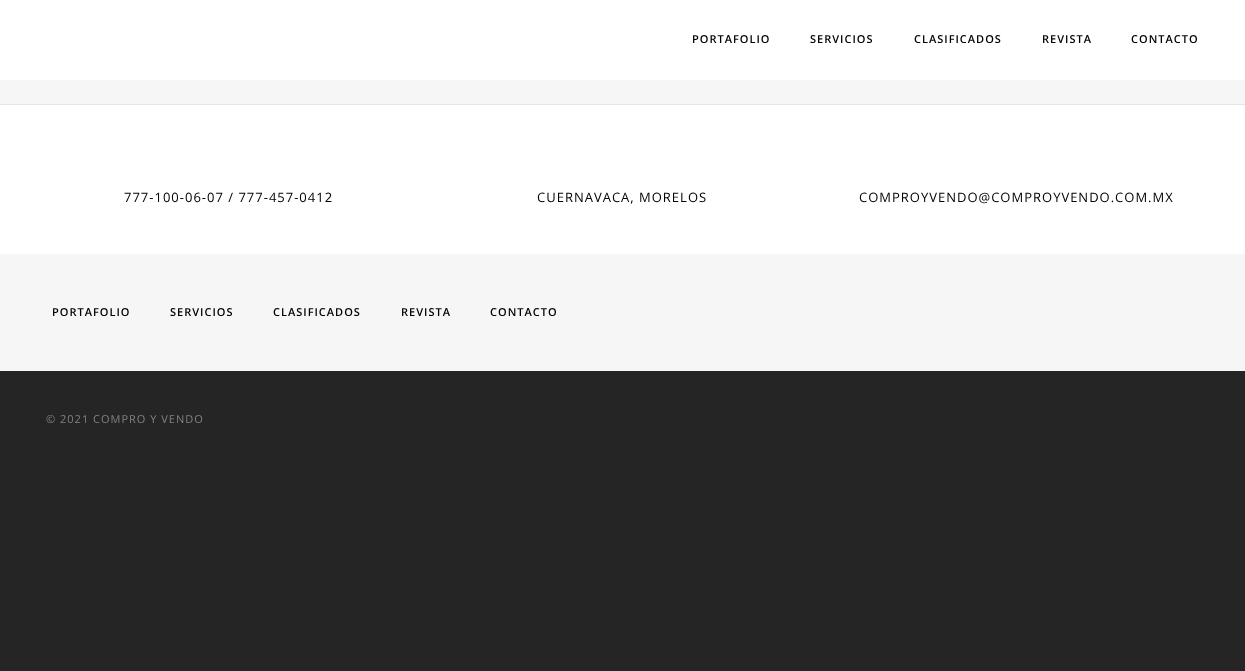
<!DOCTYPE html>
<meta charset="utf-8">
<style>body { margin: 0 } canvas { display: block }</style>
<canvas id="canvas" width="1245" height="671"></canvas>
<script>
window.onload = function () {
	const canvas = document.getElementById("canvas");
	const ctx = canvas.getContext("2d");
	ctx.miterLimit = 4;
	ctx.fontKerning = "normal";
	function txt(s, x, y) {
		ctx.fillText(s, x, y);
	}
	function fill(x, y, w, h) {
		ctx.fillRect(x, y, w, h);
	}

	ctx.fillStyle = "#F6F6F6";
	fill(0, 0, 1245, 671);
	ctx.fillStyle = "#FFFFFF";
	fill(0, 0, 1245, 80);
	fill(0, 105, 1245, 149);
	ctx.fillStyle = "#E5E5E5";
	fill(0, 104, 1245, 1);
	ctx.fillStyle = "#252525";
	fill(0, 371, 1245, 300);
	ctx.letterSpacing = "1px";
	ctx.font = "600 11px Open Sans";
	ctx.fillStyle = "#000000";
	txt("PORTAFOLIO", 692, 43);
	txt("SERVICIOS", 810, 43);
	txt("CLASIFICADOS", 914, 43);
	txt("REVISTA", 1042, 43);
	txt("CONTACTO", 1131, 43);
	ctx.font = "13px Open Sans";
	txt("777-100-06-07 / 777-457-0412", 124, 202);
	txt("CUERNAVACA, MORELOS", 537, 202);
	txt("COMPROYVENDO@COMPROYVENDO.COM.MX", 859, 202);
	ctx.font = "600 11px Open Sans";
	txt("PORTAFOLIO", 52, 316);
	txt("SERVICIOS", 170, 316);
	txt("CLASIFICADOS", 273, 316);
	txt("REVISTA", 401, 316);
	txt("CONTACTO", 490, 316);
	ctx.font = "11px Open Sans";
	ctx.fillStyle = "#828282";
	txt("© 2021 COMPRO Y VENDO", 46, 423);
};
</script>
